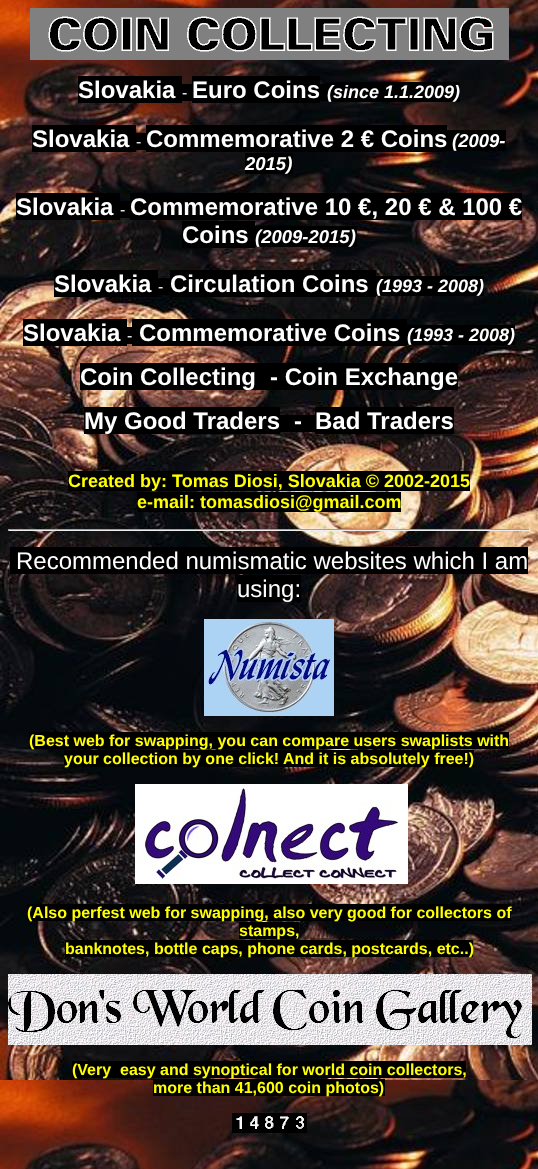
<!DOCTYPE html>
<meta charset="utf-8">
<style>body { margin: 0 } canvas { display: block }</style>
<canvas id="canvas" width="538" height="1169"></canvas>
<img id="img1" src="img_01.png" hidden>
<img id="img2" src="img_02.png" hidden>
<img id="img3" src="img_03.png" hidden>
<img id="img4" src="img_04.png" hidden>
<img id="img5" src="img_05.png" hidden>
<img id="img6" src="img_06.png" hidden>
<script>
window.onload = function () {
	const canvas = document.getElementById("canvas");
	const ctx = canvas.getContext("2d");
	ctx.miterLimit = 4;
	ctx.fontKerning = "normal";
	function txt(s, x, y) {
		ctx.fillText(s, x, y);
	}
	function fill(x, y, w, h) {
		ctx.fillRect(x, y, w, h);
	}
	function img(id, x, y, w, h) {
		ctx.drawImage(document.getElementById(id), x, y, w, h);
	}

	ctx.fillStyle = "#FFFFFF";
	fill(0, 0, 538, 1169);
	img("img1", 0, 0, 538, 1169);
	img("img2", 30, 8, 479, 52);
	ctx.fillStyle = "#000000";
	fill(78, 76, 104, 27);
	fill(182, 84, 10, 17);
	fill(192, 76, 128, 27);
	fill(320, 84, 7, 17);
	fill(327, 82, 133, 20);
	fill(32, 125, 104, 27);
	fill(136, 133, 10, 17);
	fill(146, 125, 301, 27);
	fill(447, 130, 59, 21);
	fill(245, 153, 48, 21);
	fill(16, 193, 104, 27);
	fill(120, 201, 10, 17);
	fill(130, 193, 392, 27);
	fill(182, 221, 73, 27);
	fill(255, 226, 102, 21);
	fill(54, 270, 104, 27);
	fill(158, 278, 12, 17);
	fill(170, 270, 206, 27);
	fill(376, 276, 108, 20);
	fill(23, 319, 104, 27);
	fill(127, 327, 5, 17);
	fill(132, 319, 275, 27);
	fill(407, 325, 108, 20);
	fill(80, 363, 378, 27);
	fill(84, 407, 196, 27);
	fill(280, 415, 35, 17);
	fill(315, 407, 139, 27);
	fill(68, 471, 402, 20);
	fill(137, 492, 264, 20);
	ctx.fillStyle = "#9F9F9F";
	fill(8, 529, 522, 1);
	ctx.fillStyle = "#EEEEEE";
	fill(529, 529, 1, 2);
	fill(8, 530, 522, 1);
	ctx.fillStyle = "#9F9F9F";
	fill(8, 529, 1, 2);
	ctx.fillStyle = "#000000";
	fill(10, 547, 518, 27);
	fill(237, 575, 64, 27);
	img("img3", 204, 619, 130, 97);
	fill(29, 732, 480, 17);
	fill(64, 750, 410, 17);
	img("img4", 135, 784, 273, 100);
	fill(27, 904, 484, 17);
	fill(239, 922, 60, 17);
	fill(65, 940, 408, 17);
	img("img5", 8, 974, 524, 71);
	fill(72, 1061, 394, 17);
	fill(153, 1079, 232, 17);
	img("img6", 232, 1113, 75, 20);
	ctx.font = "bold 24px Liberation Sans";
	ctx.fillStyle = "#FFFFFF";
	txt("Slovakia", 78, 98);
	ctx.font = "16px Liberation Sans";
	txt("-", 182, 98);
	ctx.font = "bold 24px Liberation Sans";
	txt("Euro Coins", 192, 98);
	ctx.font = "italic bold 18px Liberation Sans";
	txt("(since 1.1.2009)", 327, 98);
	ctx.font = "bold 24px Liberation Sans";
	txt("Slovakia", 32, 147);
	ctx.font = "16px Liberation Sans";
	txt("-", 136, 147);
	ctx.font = "bold 24px Liberation Sans";
	txt("Commemorative 2 € Coins", 146, 147);
	ctx.font = "italic bold 18.5px Liberation Sans";
	txt("(2009-", 452, 147);
	txt("2015)", 245, 170);
	ctx.font = "bold 24px Liberation Sans";
	txt("Slovakia", 16, 215);
	ctx.font = "16px Liberation Sans";
	txt("-", 120, 215);
	ctx.font = "bold 24px Liberation Sans";
	txt("Commemorative 10 €, 20 € & 100 €", 130, 215);
	txt("Coins", 182, 243);
	ctx.font = "italic bold 18.5px Liberation Sans";
	txt("(2009-2015)", 255, 243);
	ctx.font = "bold 24px Liberation Sans";
	txt("Slovakia", 54, 292);
	ctx.font = "16px Liberation Sans";
	txt("-", 158, 292);
	ctx.font = "bold 24px Liberation Sans";
	txt("Circulation Coins", 170, 292);
	ctx.font = "italic bold 18px Liberation Sans";
	txt("(1993 - 2008)", 376, 292);
	ctx.font = "bold 24px Liberation Sans";
	txt("Slovakia", 23, 341);
	ctx.font = "16px Liberation Sans";
	txt("-", 127, 341);
	ctx.font = "bold 24px Liberation Sans";
	txt("Commemorative Coins", 139, 341);
	ctx.font = "italic bold 18px Liberation Sans";
	txt("(1993 - 2008)", 407, 341);
	ctx.font = "bold 24px Liberation Sans";
	txt("Coin Collecting", 80, 385);
	txt("- Coin Exchange", 270, 385);
	txt("My Good Traders", 84, 429);
	txt("-", 294, 429);
	txt("Bad Traders", 315, 429);
	ctx.font = "bold 18px Liberation Sans";
	ctx.fillStyle = "#FFFF00";
	txt("Created by: Tomas Diosi, Slovakia © 2002-2015", 68, 487);
	txt("e-mail: tomasdiosi@gmail.com", 137, 508);
	ctx.font = "24px Liberation Sans";
	ctx.fillStyle = "#FFFFFF";
	txt("Recommended numismatic websites which I am", 16, 569);
	txt("using:", 237, 597);
	ctx.font = "bold 16px Liberation Sans";
	ctx.fillStyle = "#FFFF00";
	txt("(Best web for swapping, you can compare users swaplists with", 29, 746);
	txt("your collection by one click! And it is absolutely free!)", 64, 764);
	txt("(Also perfest web for swapping, also very good for collectors of", 27, 918);
	txt("stamps,", 239, 936);
	txt("banknotes, bottle caps, phone cards, postcards, etc..)", 65, 954);
	txt("(Very  easy and synoptical for world coin collectors,", 72, 1075);
	txt("more than 41,600 coin photos)", 153, 1093);
};
</script>
